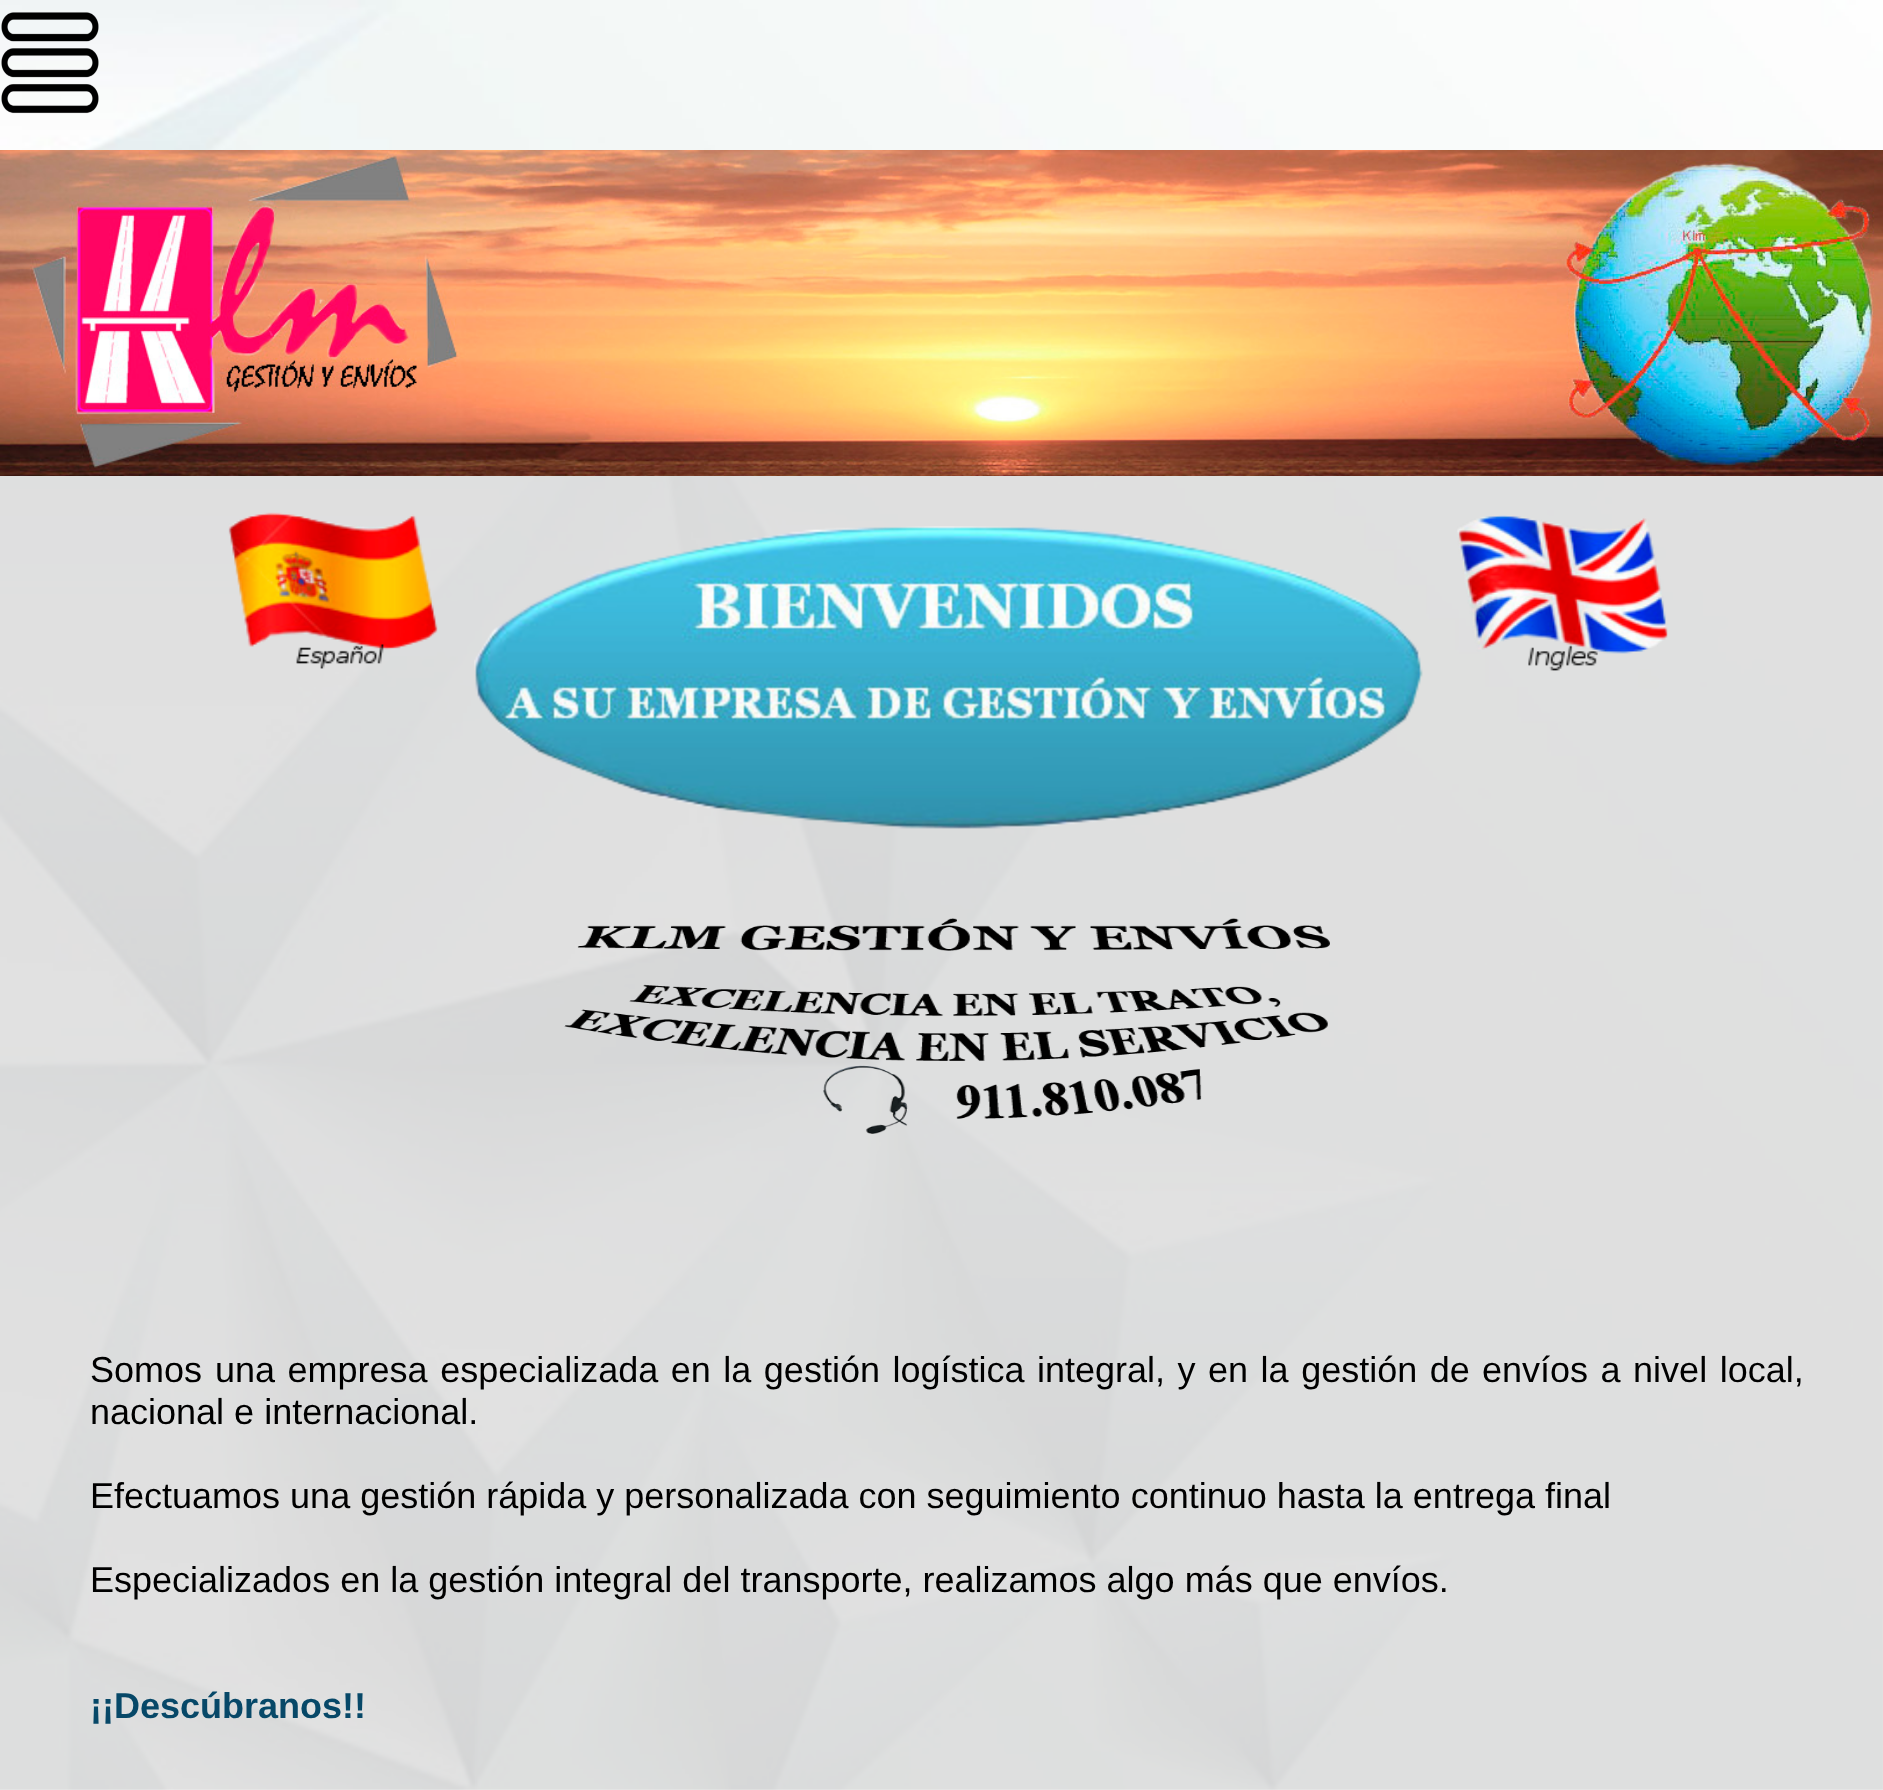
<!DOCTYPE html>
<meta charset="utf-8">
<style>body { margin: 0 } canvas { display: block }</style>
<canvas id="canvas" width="1883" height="1790"></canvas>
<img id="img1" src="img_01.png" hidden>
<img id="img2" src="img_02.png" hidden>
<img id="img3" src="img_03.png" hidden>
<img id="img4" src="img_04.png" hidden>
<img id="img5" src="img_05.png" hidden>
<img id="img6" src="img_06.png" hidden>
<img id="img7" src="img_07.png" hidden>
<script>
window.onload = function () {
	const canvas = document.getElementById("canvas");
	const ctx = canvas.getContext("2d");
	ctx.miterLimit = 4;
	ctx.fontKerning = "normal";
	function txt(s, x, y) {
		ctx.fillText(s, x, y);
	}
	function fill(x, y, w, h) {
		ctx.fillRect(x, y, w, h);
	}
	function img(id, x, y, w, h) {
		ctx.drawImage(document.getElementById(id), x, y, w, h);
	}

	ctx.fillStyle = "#FFFFFF";
	fill(0, 0, 1883, 1790);
	img("img1", 0, 0, 1883, 1790);
	img("img2", 1, 12, 98, 102);
	img("img3", 0, 150, 1883, 326);
	img("img4", 228, 512, 210, 157);
	img("img5", 474, 526, 949, 303);
	img("img6", 1457, 515, 211, 156);
	img("img7", 564, 918, 766, 216);
	ctx.font = "36px Liberation Sans";
	ctx.fillStyle = "#000000";
	txt("Somos", 90, 1382);
	ctx.wordSpacing = "2.5px";
	txt("una empresa especializada en la gestión logística integral, y en la gestión de", 215, 1382);
	txt("envíos a nivel local,", 1482, 1382);
	ctx.wordSpacing = "0px";
	txt("nacional e internacional.", 90, 1424);
	txt("Efectuamos una gestión rápida y personalizada con seguimiento continuo hasta la entrega final", 90, 1508);
	txt("Especializados en la gestión integral del transporte, realizamos algo más que envíos.", 90, 1592);
	ctx.font = "bold 36px Liberation Sans";
	ctx.fillStyle = "#074868";
	txt("¡¡Descúbranos!!", 90, 1718);
};
</script>
